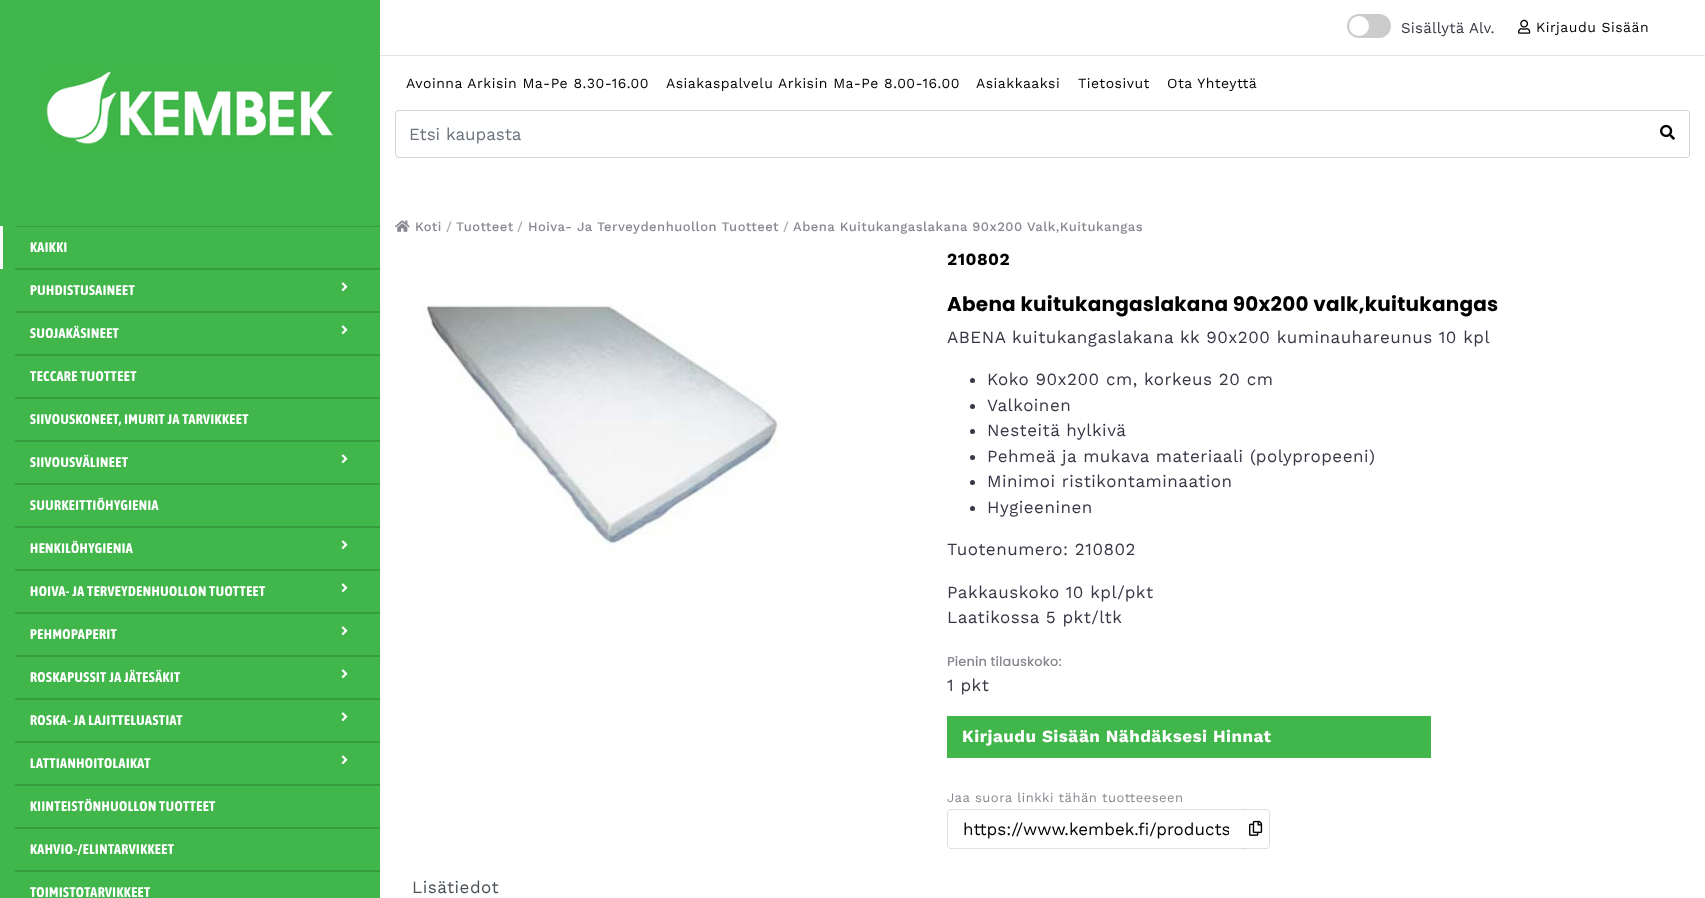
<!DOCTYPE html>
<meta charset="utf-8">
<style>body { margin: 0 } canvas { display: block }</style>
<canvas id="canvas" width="1705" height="898"></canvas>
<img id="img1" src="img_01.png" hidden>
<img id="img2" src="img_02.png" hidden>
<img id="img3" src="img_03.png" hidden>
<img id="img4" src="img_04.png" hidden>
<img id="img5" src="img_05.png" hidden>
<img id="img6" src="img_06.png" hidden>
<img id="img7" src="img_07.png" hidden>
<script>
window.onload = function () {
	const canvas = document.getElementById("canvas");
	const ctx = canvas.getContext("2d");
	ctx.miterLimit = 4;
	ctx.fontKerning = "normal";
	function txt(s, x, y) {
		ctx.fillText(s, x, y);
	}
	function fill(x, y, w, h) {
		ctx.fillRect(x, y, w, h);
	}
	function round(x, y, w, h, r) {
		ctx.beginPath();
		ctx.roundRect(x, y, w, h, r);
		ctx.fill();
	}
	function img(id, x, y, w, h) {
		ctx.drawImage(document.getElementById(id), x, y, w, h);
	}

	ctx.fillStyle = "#FFFFFF";
	fill(0, 0, 1705, 898);
	ctx.fillStyle = "#41B64B";
	fill(0, 0, 380, 898);
	img("img1", 46, 71, 287, 74);
	ctx.fillStyle = "#FFFFFF";
	fill(0, 226, 3, 43);
	ctx.fillStyle = "#359D3C";
	fill(15, 226, 365, 1);
	fill(15, 268, 365, 2);
	fill(15, 311, 365, 2);
	img("img2", 341, 282, 7, 10);
	fill(15, 354, 365, 2);
	img("img2", 341, 325, 7, 10);
	fill(15, 397, 365, 2);
	fill(15, 440, 365, 2);
	fill(15, 483, 365, 2);
	img("img2", 341, 454, 7, 10);
	fill(15, 526, 365, 2);
	fill(15, 569, 365, 2);
	img("img2", 341, 540, 7, 10);
	fill(15, 612, 365, 2);
	img("img2", 341, 583, 7, 10);
	fill(15, 655, 365, 2);
	img("img2", 341, 626, 7, 10);
	fill(15, 698, 365, 2);
	img("img2", 341, 669, 7, 10);
	fill(15, 741, 365, 2);
	img("img2", 341, 712, 7, 10);
	fill(15, 784, 365, 2);
	img("img2", 341, 755, 7, 10);
	fill(15, 827, 365, 2);
	fill(15, 870, 365, 2);
	ctx.fillStyle = "#E5E5E8";
	fill(380, 55, 1325, 1);
	ctx.fillStyle = "#CCCCCC";
	round(1347, 14, 44, 24, 12);
	ctx.fillStyle = "#FFFFFF";
	ctx.beginPath();
	ctx.arc(1359, 26, 10, 0, Math.PI * 2);
	ctx.fill();
	img("img3", 1518, 19, 13, 15);
	ctx.beginPath();
	ctx.roundRect(395.5, 110.5, 1252, 47, [3.5, 0, 0, 3.5]);
	ctx.strokeStyle = "#CED4DA";
	ctx.stroke();
	ctx.beginPath();
	ctx.roundRect(1647, 110, 43, 48, [0, 4, 4, 0]);
	ctx.fill();
	ctx.fillStyle = "#CED4DA";
	ctx.beginPath();
	ctx.moveTo(1647, 110);
	ctx.lineTo(1686, 110);
	ctx.bezierCurveTo(1688, 110, 1690, 112, 1690, 114);
	ctx.lineTo(1690, 154);
	ctx.bezierCurveTo(1690, 156, 1688, 158, 1686, 158);
	ctx.lineTo(1647, 158);
	ctx.closePath();
	ctx.moveTo(1647, 111);
	ctx.lineTo(1686, 111);
	ctx.bezierCurveTo(1688, 111, 1689, 112, 1689, 114);
	ctx.lineTo(1689, 154);
	ctx.bezierCurveTo(1689, 156, 1688, 157, 1686, 157);
	ctx.lineTo(1647, 157);
	ctx.closePath();
	ctx.fill("evenodd");
	img("img4", 1660, 124, 15, 16);
	img("img5", 395, 220, 15, 12);
	img("img6", 421, 305, 360, 248);
	ctx.fillStyle = "#373745";
	ctx.beginPath();
	ctx.arc(972.5, 380.5, 2.5, 0, Math.PI * 2);
	ctx.fill();
	ctx.beginPath();
	ctx.arc(972.5, 406.5, 2.5, 0, Math.PI * 2);
	ctx.fill();
	ctx.beginPath();
	ctx.arc(972.5, 431.5, 2.5, 0, Math.PI * 2);
	ctx.fill();
	ctx.beginPath();
	ctx.arc(972.5, 457.5, 2.5, 0, Math.PI * 2);
	ctx.fill();
	ctx.beginPath();
	ctx.arc(972.5, 482.5, 2.5, 0, Math.PI * 2);
	ctx.fill();
	ctx.beginPath();
	ctx.arc(972.5, 508.5, 2.5, 0, Math.PI * 2);
	ctx.fill();
	ctx.fillStyle = "#41B64B";
	fill(947, 716, 484, 42);
	ctx.fillStyle = "#DFDFE1";
	ctx.beginPath();
	ctx.moveTo(1243, 809);
	ctx.lineTo(1266, 809);
	ctx.bezierCurveTo(1268, 809, 1270, 811, 1270, 813);
	ctx.lineTo(1270, 845);
	ctx.bezierCurveTo(1270, 847, 1268, 849, 1266, 849);
	ctx.lineTo(1243, 849);
	ctx.closePath();
	ctx.moveTo(1243, 810);
	ctx.lineTo(1266, 810);
	ctx.bezierCurveTo(1268, 810, 1269, 811, 1269, 813);
	ctx.lineTo(1269, 845);
	ctx.bezierCurveTo(1269, 847, 1268, 848, 1266, 848);
	ctx.lineTo(1243, 848);
	ctx.closePath();
	ctx.fill("evenodd");
	ctx.fillStyle = "rgba(55, 55, 69, 0.16)";
	ctx.beginPath();
	ctx.moveTo(951, 809);
	ctx.lineTo(1244, 809);
	ctx.lineTo(1244, 849);
	ctx.lineTo(951, 849);
	ctx.bezierCurveTo(949, 849, 947, 847, 947, 845);
	ctx.lineTo(947, 813);
	ctx.bezierCurveTo(947, 811, 949, 809, 951, 809);
	ctx.closePath();
	ctx.moveTo(951, 810);
	ctx.lineTo(1244, 810);
	ctx.lineTo(1244, 848);
	ctx.lineTo(951, 848);
	ctx.bezierCurveTo(949, 848, 948, 847, 948, 845);
	ctx.lineTo(948, 813);
	ctx.bezierCurveTo(948, 811, 949, 810, 951, 810);
	ctx.closePath();
	ctx.fill("evenodd");
	img("img7", 1249, 820, 14, 16);
	ctx.letterSpacing = "0.5px";
	ctx.font = "bold 14px Asap Condensed";
	ctx.fillStyle = "#FFFFFF";
	txt("KAIKKI", 30, 252);
	txt("PUHDISTUSAINEET", 30, 295);
	txt("SUOJAKÄSINEET", 30, 338);
	txt("TECCARE TUOTTEET", 30, 381);
	txt("SIIVOUSKONEET, IMURIT JA TARVIKKEET", 30, 424);
	txt("SIIVOUSVÄLINEET", 30, 467);
	txt("SUURKEITTIÖHYGIENIA", 30, 510);
	txt("HENKILÖHYGIENIA", 30, 553);
	txt("HOIVA- JA TERVEYDENHUOLLON TUOTTEET", 30, 596);
	txt("PEHMOPAPERIT", 30, 639);
	txt("ROSKAPUSSIT JA JÄTESÄKIT", 30, 682);
	txt("ROSKA- JA LAJITTELUASTIAT", 30, 725);
	txt("LATTIANHOITOLAIKAT", 30, 768);
	txt("KIINTEISTÖNHUOLLON TUOTTEET", 30, 811);
	txt("KAHVIO-/ELINTARVIKKEET", 30, 854);
	txt("TOIMISTOTARVIKKEET", 30, 897);
	ctx.letterSpacing = "0.25px";
	ctx.font = "15px Work Sans";
	ctx.fillStyle = "#373745";
	txt("Sisällytä Alv.", 1401, 33);
	ctx.letterSpacing = "0.5px";
	ctx.font = "14px Work Sans";
	ctx.fillStyle = "#000000";
	txt("Kirjaudu Sisään", 1536, 32);
	txt("Avoinna Arkisin Ma-Pe 8.30-16.00", 406, 88);
	txt("Asiakaspalvelu Arkisin Ma-Pe 8.00-16.00", 666, 88);
	txt("Asiakkaaksi", 976, 88);
	txt("Tietosivut", 1078, 88);
	txt("Ota Yhteyttä", 1167, 88);
	ctx.letterSpacing = "0px";
	ctx.font = "17px Work Sans";
	ctx.fillStyle = "#6C757D";
	txt("Etsi kaupasta", 409, 140);
	ctx.letterSpacing = "0.5px";
	ctx.font = "500 13px Work Sans";
	ctx.fillStyle = "#87878F";
	txt("Koti", 415, 231);
	ctx.fillStyle = "#A7ACB1";
	txt("/", 446, 231);
	ctx.fillStyle = "#87878F";
	txt("Tuotteet", 456, 231);
	ctx.fillStyle = "#A7ACB1";
	txt("/", 517, 231);
	ctx.fillStyle = "#87878F";
	txt("Hoiva- Ja Terveydenhuollon Tuotteet", 528, 231);
	ctx.fillStyle = "#A7ACB1";
	txt("/", 783, 231);
	ctx.fillStyle = "#87878F";
	txt("Abena Kuitukangaslakana 90x200 Valk,Kuitukangas", 793, 231);
	ctx.font = "bold 17px Work Sans";
	ctx.fillStyle = "#000000";
	txt("210802", 947, 265);
	ctx.letterSpacing = "0.25px";
	ctx.font = "bold 20px Poppins";
	txt("Abena kuitukangaslakana 90x200 valk,kuitukangas", 947, 311);
	ctx.letterSpacing = "0.5px";
	ctx.font = "17px Work Sans";
	ctx.fillStyle = "#373745";
	txt("ABENA kuitukangaslakana kk 90x200 kuminauhareunus 10 kpl", 947, 343);
	txt("Koko 90x200 cm, korkeus 20 cm", 987, 385);
	txt("Valkoinen", 987, 411);
	txt("Nesteitä hylkivä", 987, 436);
	txt("Pehmeä ja mukava materiaali (polypropeeni)", 987, 462);
	txt("Minimoi ristikontaminaation", 987, 487);
	txt("Hygieeninen", 987, 513);
	txt("Tuotenumero: 210802", 947, 555);
	txt("Pakkauskoko 10 kpl/pkt", 947, 598);
	txt("Laatikossa 5 pkt/ltk", 947, 623);
	ctx.letterSpacing = "0.1px";
	ctx.font = "500 13px Poppins";
	ctx.fillStyle = "#87878F";
	txt("Pienin tilauskoko:", 947, 666);
	ctx.letterSpacing = "0.5px";
	ctx.font = "17px Work Sans";
	ctx.fillStyle = "#373745";
	txt("1 pkt", 947, 691);
	ctx.font = "bold 17px Work Sans";
	ctx.fillStyle = "#FFFFFF";
	txt("Kirjaudu Sisään Nähdäksesi Hinnat", 962, 742);
	ctx.font = "13px Work Sans";
	ctx.fillStyle = "#87878F";
	txt("Jaa suora linkki tähän tuotteeseen", 947, 802);
	ctx.save();
	ctx.beginPath();
	ctx.rect(963, 819, 266, 20);
	ctx.clip();
	ctx.letterSpacing = "0px";
	ctx.font = "17px Work Sans";
	ctx.fillStyle = "#000000";
	txt("https://www.kembek.fi/products", 963, 835);
	ctx.restore();
	ctx.font = "17px Work Sans";
	ctx.fillStyle = "#495057";
	txt("Lisätiedot", 412, 893);
};
</script>
